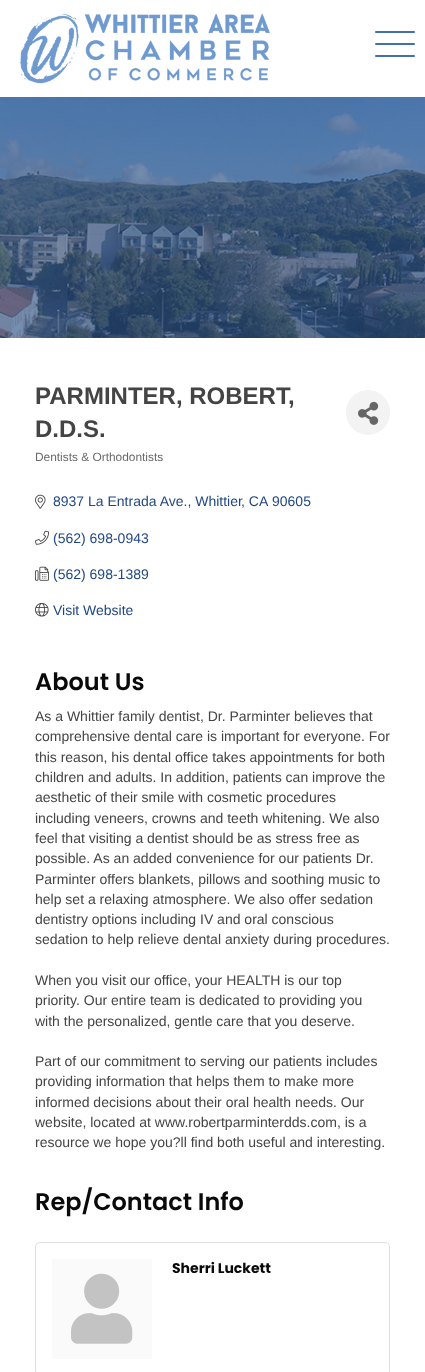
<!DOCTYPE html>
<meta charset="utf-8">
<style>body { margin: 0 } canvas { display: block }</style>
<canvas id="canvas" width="425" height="1372"></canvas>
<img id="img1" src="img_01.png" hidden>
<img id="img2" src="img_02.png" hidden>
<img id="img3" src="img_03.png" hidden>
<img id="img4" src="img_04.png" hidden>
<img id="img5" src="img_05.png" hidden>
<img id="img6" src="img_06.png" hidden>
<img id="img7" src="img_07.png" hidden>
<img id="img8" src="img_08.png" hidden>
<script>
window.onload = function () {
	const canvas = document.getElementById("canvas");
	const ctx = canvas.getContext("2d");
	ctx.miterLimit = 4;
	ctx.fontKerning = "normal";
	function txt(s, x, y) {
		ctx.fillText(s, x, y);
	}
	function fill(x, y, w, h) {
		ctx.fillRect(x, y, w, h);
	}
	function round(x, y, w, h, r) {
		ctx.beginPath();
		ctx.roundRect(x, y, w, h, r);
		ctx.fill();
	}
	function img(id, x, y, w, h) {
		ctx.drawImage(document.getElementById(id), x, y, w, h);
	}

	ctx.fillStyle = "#FFFFFF";
	fill(0, 0, 425, 1372);
	img("img1", 20, 13, 250, 71);
	ctx.fillStyle = "#446FAD";
	round(375, 43, 40, 2, 1);
	round(375, 31, 40, 2, 1);
	round(375, 55, 40, 2, 1);
	img("img2", 0, 97, 425, 241);
	ctx.fillStyle = "#F3F3F3";
	round(346, 390, 44, 45, 22);
	img("img3", 358, 401, 21, 24);
	img("img4", 35, 494, 11, 15);
	img("img5", 35, 530, 14, 15);
	img("img6", 35, 566, 14, 15);
	img("img7", 35, 603, 14, 14);
	ctx.beginPath();
	ctx.roundRect(35.5, 1242.5, 354, 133, 4.5);
	ctx.strokeStyle = "#DFDFDF";
	ctx.stroke();
	ctx.fillStyle = "#FAFAFA";
	fill(52, 1259, 100, 100);
	img("img8", 71, 1273, 62, 71);
	ctx.font = "bold 24px Liberation Sans";
	ctx.fillStyle = "#444444";
	txt("PARMINTER, ROBERT,", 35, 404);
	txt("D.D.S.", 35, 437);
	ctx.font = "11.9px Liberation Sans";
	ctx.fillStyle = "#696969";
	txt("Dentists & Orthodontists", 35, 461);
	ctx.font = "14px Liberation Sans";
	ctx.fillStyle = "#224884";
	txt("8937 La Entrada Ave., Whittier", 53, 506);
	txt(", CA", 241, 506);
	txt("90605", 272, 506);
	txt("(562) 698-0943", 53, 543);
	txt("(562) 698-1389", 53, 579);
	txt("Visit Website", 53, 615);
	ctx.font = "600 24px Poppins";
	ctx.fillStyle = "#0A0A0A";
	txt("About Us", 35, 690);
	ctx.font = "14px Liberation Sans";
	ctx.fillStyle = "#444444";
	txt("As a Whittier family dentist, Dr. Parminter believes that", 35, 721);
	txt("comprehensive dental care is important for everyone. For", 35, 741);
	txt("this reason, his dental office takes appointments for both", 35, 762);
	txt("children and adults. In addition, patients can improve the", 35, 782);
	txt("aesthetic of their smile with cosmetic procedures", 35, 802);
	txt("including veneers, crowns and teeth whitening. We also", 35, 823);
	txt("feel that visiting a dentist should be as stress free as", 35, 843);
	txt("possible. As an added convenience for our patients Dr.", 35, 863);
	txt("Parminter offers blankets, pillows and soothing music to", 35, 884);
	txt("help set a relaxing atmosphere. We also offer sedation", 35, 904);
	txt("dentistry options including IV and oral conscious", 35, 924);
	txt("sedation to help relieve dental anxiety during procedures.", 35, 944);
	txt("When you visit our office, your HEALTH is our top", 35, 985);
	txt("priority. Our entire team is dedicated to providing you", 35, 1005);
	txt("with the personalized, gentle care that you deserve.", 35, 1026);
	txt("Part of our commitment to serving our patients includes", 35, 1066);
	txt("providing information that helps them to make more", 35, 1086);
	txt("informed decisions about their oral health needs. Our", 35, 1107);
	txt("website, located at www.robertparminterdds.com, is a", 35, 1127);
	txt("resource we hope you?ll find both useful and interesting.", 35, 1147);
	ctx.font = "600 24px Poppins";
	ctx.fillStyle = "#0A0A0A";
	txt("Rep/Contact Info", 35, 1210);
	ctx.font = "bold 14px Poppins";
	txt("Sherri Luckett", 172, 1273);
};
</script>
